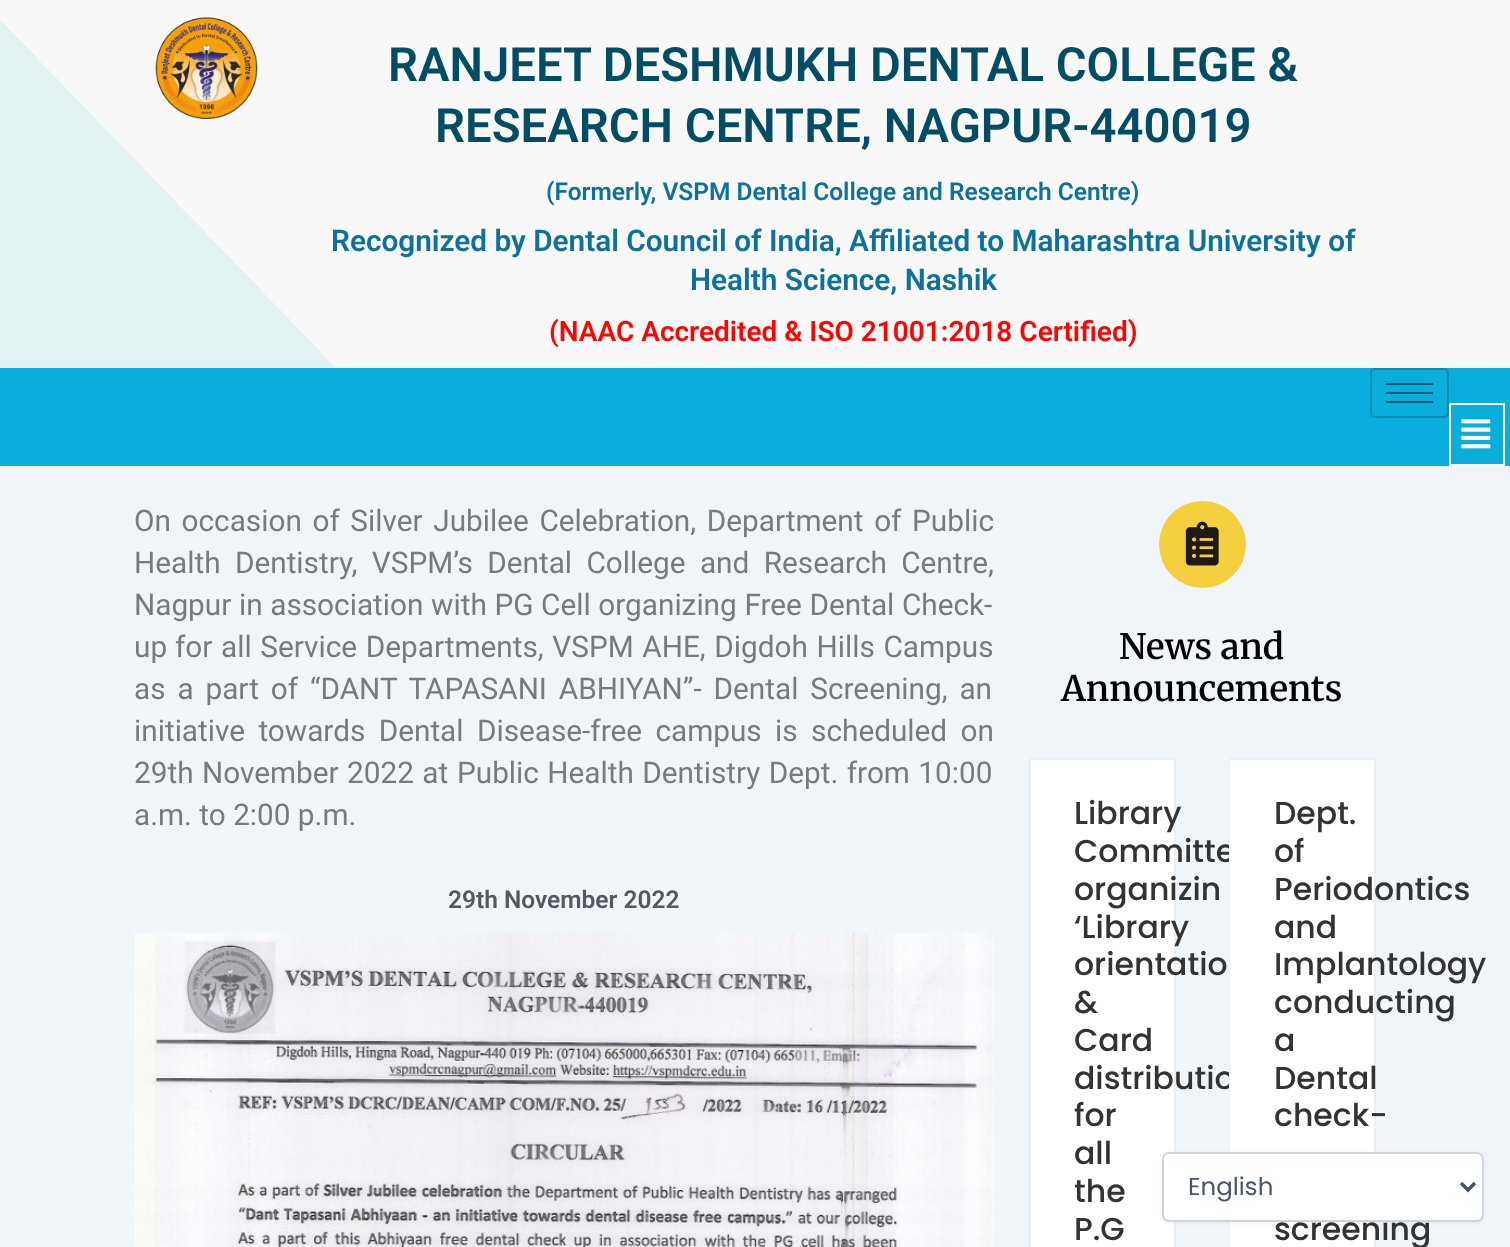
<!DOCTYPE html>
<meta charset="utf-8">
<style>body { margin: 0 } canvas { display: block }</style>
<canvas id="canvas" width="1510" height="1247"></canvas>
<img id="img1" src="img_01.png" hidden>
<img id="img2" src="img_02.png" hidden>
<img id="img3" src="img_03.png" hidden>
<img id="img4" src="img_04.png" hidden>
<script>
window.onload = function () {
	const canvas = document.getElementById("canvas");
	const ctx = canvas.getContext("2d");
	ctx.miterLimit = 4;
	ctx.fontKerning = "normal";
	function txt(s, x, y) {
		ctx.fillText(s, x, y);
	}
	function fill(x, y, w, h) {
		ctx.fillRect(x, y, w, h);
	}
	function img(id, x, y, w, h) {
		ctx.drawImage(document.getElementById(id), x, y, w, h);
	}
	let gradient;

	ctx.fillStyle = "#F0F5FA";
	fill(0, 0, 1510, 1247);
	gradient = ctx.createLinearGradient(1238, -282, 273, 650);
	gradient.addColorStop(0.82, "#F8F8F8");
	gradient.addColorStop(0.82, "#E2F2F3");
	ctx.fillStyle = gradient;
	fill(0, 0, 1510, 368);
	img("img1", 155, 17, 103, 102);
	ctx.fillStyle = "#09AEDD";
	fill(0, 368, 1510, 98);
	ctx.beginPath();
	ctx.roundRect(1371, 369, 77, 48, 4);
	ctx.strokeStyle = "rgba(0, 0, 0, 0.2)";
	ctx.lineWidth = 2;
	ctx.stroke();
	ctx.fillStyle = "#05576F";
	fill(1386, 383, 47, 2);
	fill(1386, 392, 47, 2);
	fill(1386, 401, 47, 2);
	ctx.strokeStyle = "#FFF6F6";
	ctx.strokeRect(1450, 404, 54, 61);
	img("img2", 1461, 419, 30, 30);
	img("img3", 135, 932, 859, 315);
	ctx.fillStyle = "#F4D03F";
	ctx.beginPath();
	ctx.arc(1202.5, 544.5, 43.5, 0, Math.PI * 2);
	ctx.fill();
	img("img4", 1185, 521, 34, 45);
	ctx.strokeStyle = "#EEEEEE";
	ctx.strokeRect(1030, 759, 145, 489);
	ctx.fillStyle = "#FFFFFF";
	fill(1031, 760, 143, 487);
	ctx.font = "600 47.25px Roboto";
	ctx.fillStyle = "#024C64";
	txt("RANJEET DESHMUKH DENTAL COLLEGE &", 388, 81);
	txt("RESEARCH CENTRE, NAGPUR-440019", 435, 142);
	ctx.font = "600 24.5px Roboto";
	ctx.fillStyle = "#0D719C";
	txt("(Formerly, VSPM Dental College and Research Centre)", 546, 200);
	ctx.font = "600 29.75px Roboto";
	txt("Recognized by Dental Council of India, Affiliated to Maharashtra University of", 331, 251);
	txt("Health Science, Nashik", 690, 290);
	ctx.font = "600 28px Roboto";
	ctx.fillStyle = "#FF0300";
	txt("(NAAC Accredited & ISO 21001:2018 Certified)", 549, 341);
	ctx.wordSpacing = "3.25px";
	ctx.font = "29.75px Roboto";
	ctx.fillStyle = "#7A7A7A";
	txt("On occasion of Silver Jubilee Celebration, Department of Public", 134, 531);
	ctx.wordSpacing = "7px";
	txt("Health Dentistry, VSPM’s Dental College and Research Centre,", 134, 573);
	ctx.wordSpacing = "0.25px";
	txt("Nagpur in association with PG Cell organizing Free Dental Check-", 134, 615);
	ctx.wordSpacing = "0px";
	txt("up", 134, 657);
	ctx.wordSpacing = "1.25px";
	txt("for all Service Departments, VSPM AHE, Digdoh Hills Campus", 175, 657);
	ctx.wordSpacing = "4.5px";
	txt("as a part of “DANT TAPASANI ABHIYAN”- Dental Screening, an", 134, 699);
	ctx.wordSpacing = "6px";
	txt("initiative towards Dental Disease-free campus is scheduled on", 134, 741);
	ctx.wordSpacing = "0px";
	txt("29th", 134, 783);
	ctx.wordSpacing = "1px";
	txt("November 2022 at", 202, 783);
	txt("Public Health Dentistry Dept. from 10:00", 457, 783);
	ctx.wordSpacing = "0px";
	txt("a.m. to 2:00 p.m.", 134, 825);
	ctx.font = "600 24.5px Roboto";
	ctx.fillStyle = "#54595F";
	txt("29th November 2022", 448, 908);
	ctx.font = "600 35px Merriweather";
	ctx.fillStyle = "#000000";
	txt("News and", 1119, 659);
	txt("Announcements", 1061, 701);
	ctx.font = "500 31.5px Poppins";
	ctx.fillStyle = "#333333";
	txt("Library", 1074, 824);
	txt("Committe", 1074, 862);
	txt("organizin", 1074, 900);
	txt("‘Library", 1074, 938);
	txt("orientatio", 1074, 975);
	txt("&", 1074, 1013);
	txt("Card", 1074, 1051);
	txt("distributio", 1074, 1089);
	txt("for", 1074, 1126);
	txt("all", 1074, 1164);
	txt("the", 1074, 1202);
	txt("P.G", 1074, 1240);
	ctx.strokeRect(1230, 759, 145, 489);
	ctx.fillStyle = "#FFFFFF";
	fill(1230, 760, 144, 487);
	ctx.fillStyle = "#333333";
	txt("Dept.", 1274, 824);
	txt("of", 1274, 862);
	txt("Periodontics", 1274, 900);
	txt("and", 1274, 938);
	txt("Implantology", 1274, 975);
	txt("conducting", 1274, 1013);
	txt("a", 1274, 1051);
	txt("Dental", 1274, 1089);
	txt("check-", 1274, 1126);
	txt("screening", 1274, 1240);
	ctx.fillStyle = "rgba(0, 0, 0, 0.05)";
	ctx.filter = "blur(2px)";
	ctx.beginPath();
	ctx.roundRect(1162, 1153, 322, 70, 7);
	ctx.fill();
	ctx.filter = "none";
	ctx.fillStyle = "#FFFFFF";
	ctx.beginPath();
	ctx.roundRect(1163, 1153, 320, 68, 6);
	ctx.fill();
	ctx.strokeStyle = "#D1D5DB";
	ctx.stroke();
	ctx.beginPath();
	ctx.moveTo(1461, 1183);
	ctx.lineTo(1468, 1190);
	ctx.lineTo(1475, 1183);
	ctx.strokeStyle = "#475569";
	ctx.lineWidth = 3.5;
	ctx.stroke();
	ctx.font = "24.5px Poppins";
	ctx.fillStyle = "#475569";
	txt("English", 1188, 1195);
};
</script>
